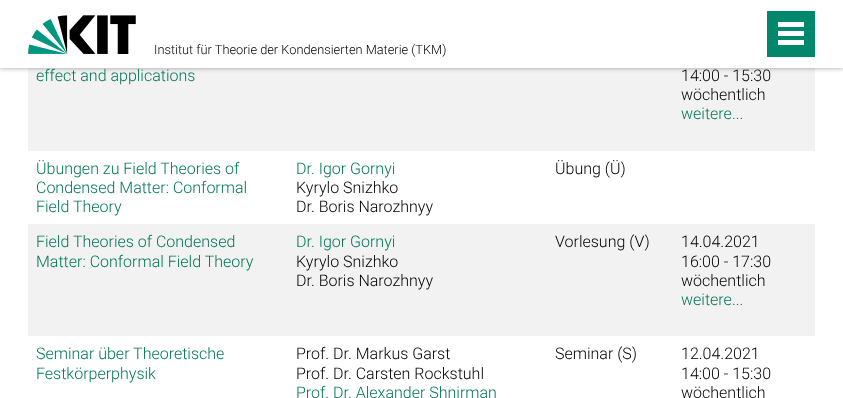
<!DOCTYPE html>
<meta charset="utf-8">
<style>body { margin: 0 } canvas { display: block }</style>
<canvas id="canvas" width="843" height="398"></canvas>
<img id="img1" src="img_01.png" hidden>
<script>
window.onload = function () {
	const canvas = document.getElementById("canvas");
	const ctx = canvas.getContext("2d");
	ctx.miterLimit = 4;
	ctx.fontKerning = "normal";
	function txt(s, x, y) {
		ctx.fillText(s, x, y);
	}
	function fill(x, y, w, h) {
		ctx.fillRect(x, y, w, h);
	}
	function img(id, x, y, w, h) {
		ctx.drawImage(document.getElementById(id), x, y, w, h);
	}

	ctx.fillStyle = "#FFFFFF";
	fill(0, 0, 843, 398);
	ctx.fillStyle = "#F2F2F2";
	fill(28, 68, 787, 83);
	ctx.fillStyle = "rgba(64, 64, 64, 0.5)";
	ctx.filter = "blur(2.5px)";
	ctx.beginPath();
	ctx.rect(0, 0, 843, 68);
	ctx.fill();
	ctx.filter = "none";
	ctx.fillStyle = "#FFFFFF";
	fill(0, 0, 843, 68);
	img("img1", 28, 15, 108, 39);
	ctx.fillStyle = "#00876C";
	fill(767, 11, 48, 46);
	ctx.fillStyle = "#FFFFFF";
	fill(778, 40, 26, 5);
	fill(778, 31, 26, 5);
	fill(778, 22, 26, 5);
	ctx.fillStyle = "#F2F2F2";
	fill(28, 224, 787, 112);
	ctx.font = "300 12.8px Roboto";
	ctx.fillStyle = "#000000";
	txt("Institut für Theorie der Kondensierten Materie (TKM)", 154, 54);
	ctx.font = "300 16px Roboto";
	ctx.fillStyle = "#007755";
	txt("effect and applications", 36, 81);
	ctx.fillStyle = "#000000";
	txt("14:00 - 15:30", 681, 81);
	txt("wöchentlich", 681, 100);
	ctx.fillStyle = "#007755";
	txt("weitere...", 681, 119);
	txt("Übungen zu Field Theories of", 36, 174);
	txt("Condensed Matter: Conformal", 36, 193);
	txt("Field Theory", 36, 212);
	txt("Dr. Igor Gornyi", 296, 174);
	ctx.fillStyle = "#000000";
	txt("Kyrylo Snizhko", 296, 193);
	txt("Dr. Boris Narozhnyy", 296, 212);
	txt("Übung (Ü)", 555, 174);
	ctx.fillStyle = "#007755";
	txt("Field Theories of Condensed", 36, 247);
	txt("Matter: Conformal Field Theory", 36, 267);
	txt("Dr. Igor Gornyi", 296, 247);
	ctx.fillStyle = "#000000";
	txt("Kyrylo Snizhko", 296, 267);
	txt("Dr. Boris Narozhnyy", 296, 286);
	txt("Vorlesung (V)", 555, 247);
	txt("14.04.2021", 681, 247);
	txt("16:00 - 17:30", 681, 267);
	txt("wöchentlich", 681, 286);
	ctx.fillStyle = "#007755";
	txt("weitere...", 681, 305);
	txt("Seminar über Theoretische", 36, 359);
	txt("Festkörperphysik", 36, 379);
	ctx.fillStyle = "#000000";
	txt("Prof. Dr. Markus Garst", 296, 359);
	txt("Prof. Dr. Carsten Rockstuhl", 296, 379);
	ctx.fillStyle = "#007755";
	txt("Prof. Dr. Alexander Shnirman", 296, 398);
	ctx.fillStyle = "#000000";
	txt("Seminar (S)", 555, 359);
	txt("12.04.2021", 681, 359);
	txt("14:00 - 15:30", 681, 379);
	txt("wöchentlich", 681, 398);
};
</script>
